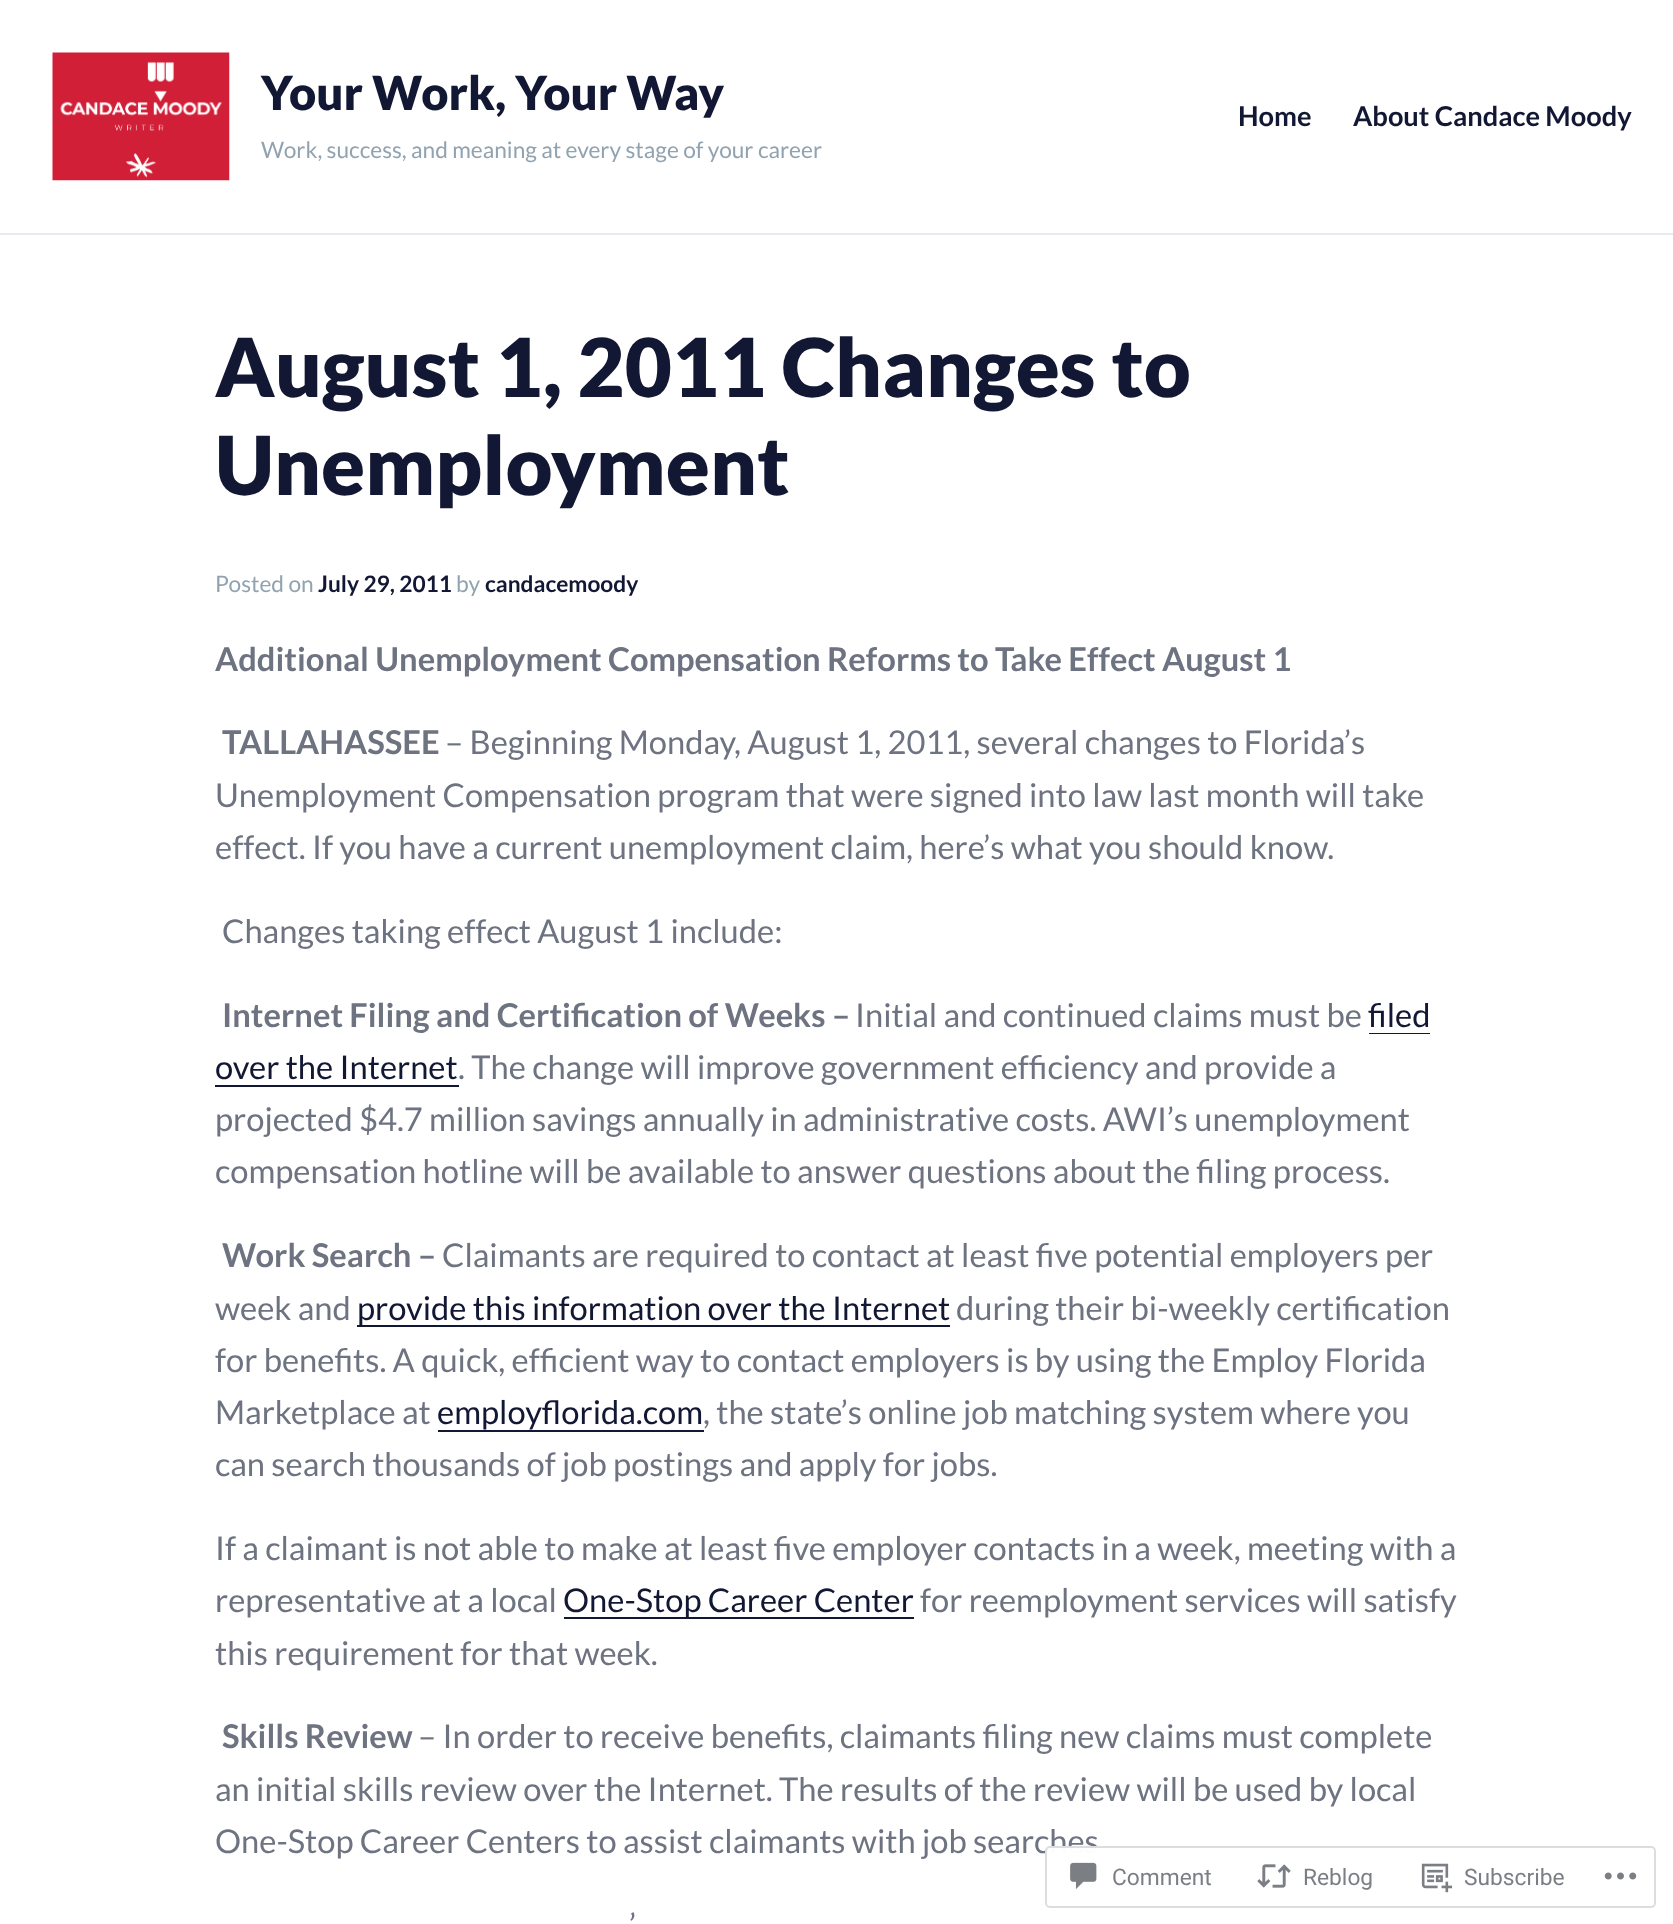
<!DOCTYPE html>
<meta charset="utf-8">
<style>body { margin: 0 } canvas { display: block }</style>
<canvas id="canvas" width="1673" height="1924"></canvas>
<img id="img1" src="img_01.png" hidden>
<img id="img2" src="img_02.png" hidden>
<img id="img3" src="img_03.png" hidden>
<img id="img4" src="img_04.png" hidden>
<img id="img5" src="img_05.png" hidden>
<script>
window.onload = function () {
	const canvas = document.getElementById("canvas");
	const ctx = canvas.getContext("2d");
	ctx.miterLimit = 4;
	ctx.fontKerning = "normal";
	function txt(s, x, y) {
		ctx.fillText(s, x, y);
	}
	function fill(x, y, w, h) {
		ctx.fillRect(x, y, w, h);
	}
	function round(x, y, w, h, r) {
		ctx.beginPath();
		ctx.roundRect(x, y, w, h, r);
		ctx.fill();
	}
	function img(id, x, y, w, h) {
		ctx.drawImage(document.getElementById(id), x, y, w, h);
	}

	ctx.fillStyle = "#FFFFFF";
	fill(0, 0, 1673, 1924);
	ctx.fillStyle = "#E8ECF1";
	fill(0, 233, 1673, 2);
	img("img1", 52, 52, 178, 129);
	ctx.fillStyle = "#121733";
	fill(1369, 1033, 61, 1);
	fill(215, 1085, 244, 2);
	fill(357, 1325, 593, 2);
	fill(438, 1430, 266, 2);
	fill(564, 1617, 350, 2);
	ctx.font = "900 47px Lato";
	txt("Your Work, Your Way", 261, 110);
	ctx.font = "22.7px Lato";
	ctx.fillStyle = "#91A3B0";
	txt("Work, success, and meaning at every stage of your career", 261, 158);
	ctx.font = "bold 27.25px Lato";
	ctx.fillStyle = "#121733";
	txt("Home", 1238, 126);
	txt("About Candace Moody", 1353, 126);
	ctx.font = "900 81.25px Lato";
	txt("August 1, 2011 Changes to", 215, 397);
	txt("Unemployment", 215, 495);
	ctx.font = "22.7px Lato";
	ctx.fillStyle = "#91A3B0";
	txt("Posted on", 215, 592);
	ctx.font = "bold 22.7px Lato";
	ctx.fillStyle = "#121733";
	txt("July 29, 2011", 318, 592);
	ctx.font = "22.7px Lato";
	ctx.fillStyle = "#91A3B0";
	txt("by", 456, 592);
	ctx.font = "bold 22.7px Lato";
	ctx.fillStyle = "#121733";
	txt("candacemoody", 485, 592);
	ctx.font = "bold 32.7px Lato";
	ctx.fillStyle = "#6E7381";
	txt("Additional Unemployment Compensation Reforms to Take Effect August 1", 215, 671);
	txt("TALLAHASSEE", 222, 754);
	ctx.font = "32.7px Lato";
	txt("– Beginning Monday, August 1, 2011, several changes to Florida’s", 445, 754);
	txt("Unemployment Compensation program that were signed into law last month will take", 215, 807);
	txt("effect. If you have a current unemployment claim, here’s what you should know.", 215, 859);
	txt("Changes taking effect August 1 include:", 222, 943);
	ctx.font = "bold 32.7px Lato";
	txt("Internet Filing and Certification of Weeks –", 222, 1027);
	ctx.font = "32.7px Lato";
	txt("Initial and continued claims must be", 855, 1027);
	ctx.fillStyle = "#121733";
	txt("filed", 1368, 1027);
	txt("over the Internet", 215, 1079);
	ctx.fillStyle = "#6E7381";
	txt(". The change will improve government efficiency and provide a", 458, 1079);
	txt("projected $4.7 million savings annually in administrative costs. AWI’s unemployment", 215, 1131);
	txt("compensation hotline will be available to answer questions about the filing process.", 215, 1183);
	ctx.font = "bold 32.7px Lato";
	txt("Work Search –", 222, 1267);
	ctx.font = "32.7px Lato";
	txt("Claimants are required to contact at least five potential employers per", 442, 1267);
	txt("week and", 215, 1320);
	ctx.fillStyle = "#121733";
	txt("provide this information over the Internet", 357, 1320);
	ctx.fillStyle = "#6E7381";
	txt("during their bi-weekly certification", 956, 1320);
	txt("for benefits. A quick, efficient way to contact employers is by using the Employ Florida", 215, 1372);
	txt("Marketplace at", 215, 1424);
	ctx.fillStyle = "#121733";
	txt("employflorida.com", 437, 1424);
	ctx.fillStyle = "#6E7381";
	txt(", the state’s online job matching system where you", 703, 1424);
	txt("can search thousands of job postings and apply for jobs.", 215, 1476);
	txt("If a claimant is not able to make at least five employer contacts in a week, meeting with a", 215, 1560);
	txt("representative at a local", 215, 1612);
	ctx.fillStyle = "#121733";
	txt("One-Stop Career Center", 563, 1612);
	ctx.fillStyle = "#6E7381";
	txt("for reemployment services will satisfy", 920, 1612);
	txt("this requirement for that week.", 215, 1665);
	ctx.font = "bold 32.7px Lato";
	txt("Skills Review", 222, 1748);
	ctx.font = "32.7px Lato";
	txt("– In order to receive benefits, claimants filing new claims must complete", 418, 1748);
	txt("an initial skills review over the Internet. The results of the review will be used by local", 215, 1801);
	txt("One-Stop Career Centers to assist claimants with job searches", 215, 1853);
	txt("’", 629, 1937);
	ctx.fillStyle = "rgba(255, 255, 255, 0.98)";
	round(1045, 1846, 611, 62, 5);
	ctx.beginPath();
	ctx.roundRect(1046, 1847, 609, 60, 4);
	ctx.strokeStyle = "rgba(220, 220, 222, 0.98)";
	ctx.lineWidth = 2;
	ctx.stroke();
	img("img2", 1070, 1862, 27, 27);
	ctx.font = "22.75px Roboto";
	ctx.fillStyle = "#7B7F85";
	txt("Comment", 1112, 1885);
	img("img3", 1257, 1864, 34, 24);
	txt("Reblog", 1303, 1885);
	img("img4", 1421, 1863, 32, 30);
	txt("Subscribe", 1464, 1885);
	img("img5", 1604, 1872, 33, 8);
};
</script>
